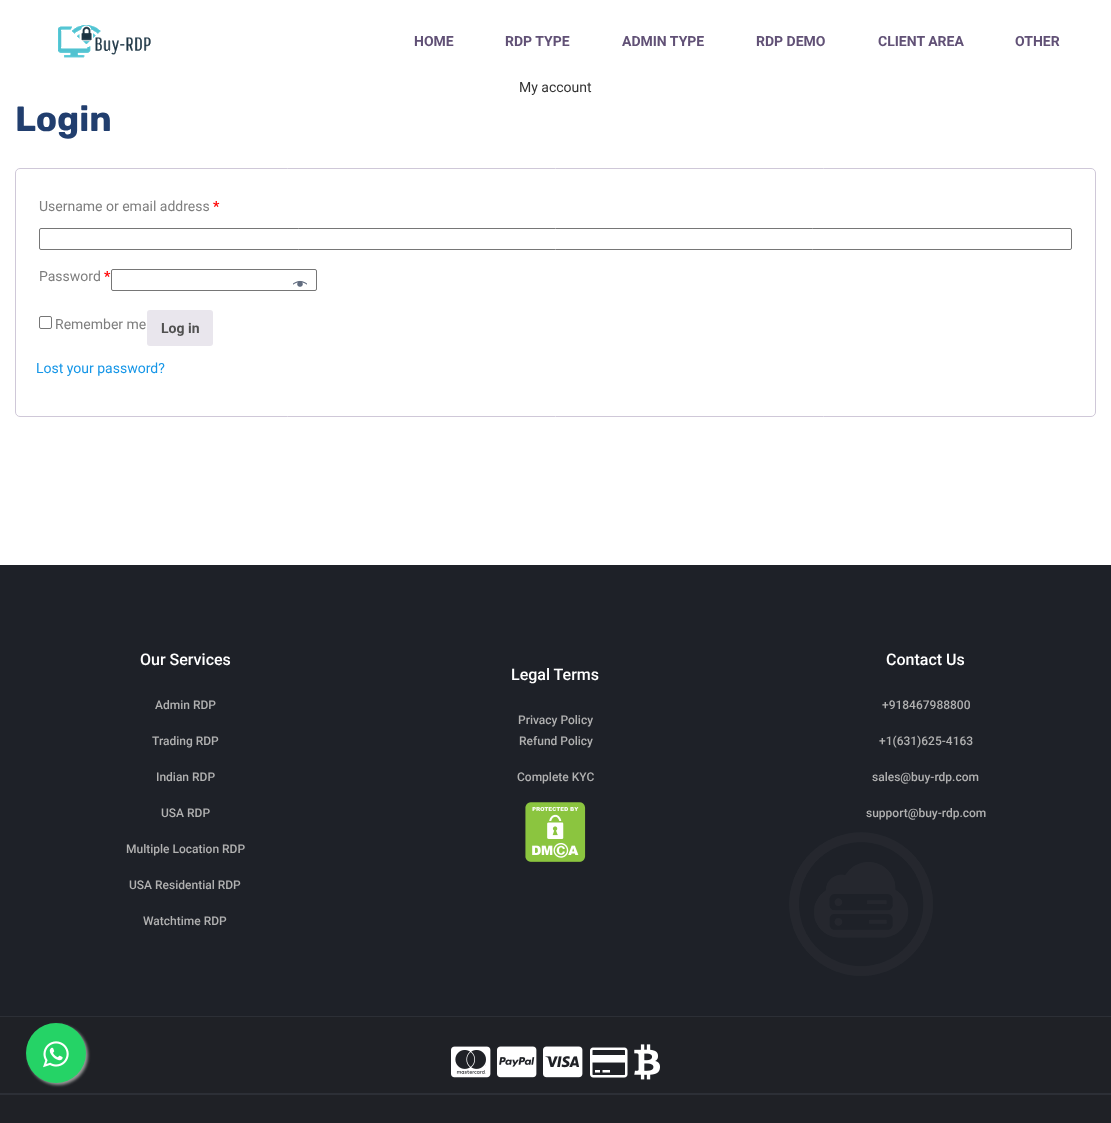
<!DOCTYPE html>
<meta charset="utf-8">
<style>body { margin: 0 } canvas { display: block }</style>
<canvas id="canvas" width="1111" height="1123"></canvas>
<img id="img1" src="img_01.png" hidden>
<img id="img2" src="img_02.png" hidden>
<img id="img3" src="img_03.png" hidden>
<img id="img4" src="img_04.png" hidden>
<img id="img5" src="img_05.png" hidden>
<img id="img6" src="img_06.png" hidden>
<img id="img7" src="img_07.png" hidden>
<img id="img8" src="img_08.png" hidden>
<img id="img9" src="img_09.png" hidden>
<img id="img10" src="img_10.png" hidden>
<script>
window.onload = function () {
	const canvas = document.getElementById("canvas");
	const ctx = canvas.getContext("2d");
	ctx.miterLimit = 4;
	ctx.fontKerning = "normal";
	function txt(s, x, y) {
		ctx.fillText(s, x, y);
	}
	function fill(x, y, w, h) {
		ctx.fillRect(x, y, w, h);
	}
	function round(x, y, w, h, r) {
		ctx.beginPath();
		ctx.roundRect(x, y, w, h, r);
		ctx.fill();
	}
	function img(id, x, y, w, h) {
		ctx.drawImage(document.getElementById(id), x, y, w, h);
	}

	ctx.fillStyle = "#FFFFFF";
	fill(0, 0, 1111, 1123);
	img("img1", 58, 25, 93, 33);
	ctx.beginPath();
	ctx.roundRect(15.5, 168.5, 1080, 248, 4.5);
	ctx.strokeStyle = "#CFC8D8";
	ctx.stroke();
	ctx.beginPath();
	ctx.roundRect(39.5, 228.5, 1032, 21, 1.5);
	ctx.strokeStyle = "#767676";
	ctx.stroke();
	ctx.beginPath();
	ctx.roundRect(111.5, 269.5, 205, 21, 1.5);
	ctx.stroke();
	img("img2", 293, 280, 14, 7);
	ctx.beginPath();
	ctx.roundRect(39.5, 316.5, 12, 12, 1.5);
	ctx.stroke();
	ctx.fillStyle = "#E9E6ED";
	round(147, 310, 66, 36, 3);
	ctx.fillStyle = "#1E2128";
	fill(0, 565, 1111, 451);
	img("img3", 525, 802, 61, 60);
	img("img4", 789, 832, 144, 144);
	ctx.fillStyle = "#1F2126";
	fill(0, 1017, 1111, 76);
	ctx.fillStyle = "#2C2F36";
	fill(0, 1016, 1111, 1);
	fill(0, 1093, 1111, 2);
	img("img5", 451, 1046, 40, 32);
	img("img6", 497, 1046, 40, 32);
	img("img7", 543, 1046, 40, 32);
	img("img8", 590, 1047, 38, 31);
	img("img9", 634, 1044, 26, 36);
	ctx.fillStyle = "#999999";
	ctx.filter = "blur(1.5px)";
	ctx.beginPath();
	ctx.roundRect(28, 1025, 60, 60, 30);
	ctx.fill();
	ctx.filter = "none";
	ctx.fillStyle = "#25D366";
	ctx.beginPath();
	ctx.arc(56, 1053, 30, 0, Math.PI * 2);
	ctx.fill();
	img("img10", 43, 1041, 26, 27);
	ctx.fillStyle = "#1F2126";
	fill(0, 1095, 1111, 28);
	ctx.font = "bold 14px Roboto";
	ctx.fillStyle = "#615176";
	txt("HOME", 414, 46);
	txt("RDP TYPE", 505, 46);
	txt("ADMIN TYPE", 622, 46);
	txt("RDP DEMO", 756, 46);
	txt("CLIENT AREA", 878, 46);
	txt("OTHER", 1015, 46);
	ctx.font = "14px Roboto";
	ctx.fillStyle = "#333333";
	txt("My account", 519, 92);
	ctx.font = "bold 35px Rubik";
	ctx.fillStyle = "#213E6E";
	txt("Login", 15, 131);
	ctx.font = "14px Roboto";
	ctx.fillStyle = "#7E7E7E";
	txt("Username or email address", 39, 211);
	ctx.font = "bold 14px Roboto";
	ctx.fillStyle = "#FF0000";
	txt("*", 213, 211);
	ctx.font = "14px Roboto";
	ctx.fillStyle = "#7E7E7E";
	txt("Password", 39, 281);
	ctx.font = "bold 14px Roboto";
	ctx.fillStyle = "#FF0000";
	txt("*", 104, 281);
	ctx.font = "14px Roboto";
	ctx.fillStyle = "#7E7E7E";
	txt("Remember me", 55, 329);
	ctx.font = "bold 14px Roboto";
	ctx.fillStyle = "#515151";
	txt("Log in", 161, 333);
	ctx.font = "14px Roboto";
	ctx.fillStyle = "#1696E7";
	txt("Lost your password?", 36, 373);
	ctx.font = "500 16px Roboto";
	ctx.fillStyle = "#FFFFFF";
	txt("Our Services", 140, 665);
	ctx.font = "500 12px Roboto";
	ctx.fillStyle = "#B1B1B1";
	txt("Admin RDP", 155, 709);
	txt("Trading RDP", 152, 745);
	txt("Indian RDP", 156, 781);
	txt("USA RDP", 161, 817);
	txt("Multiple Location RDP", 126, 853);
	txt("USA Residential RDP", 129, 889);
	txt("Watchtime RDP", 143, 925);
	ctx.font = "500 16px Roboto";
	ctx.fillStyle = "#FFFFFF";
	txt("Legal Terms", 511, 680);
	ctx.font = "500 12px Roboto";
	ctx.fillStyle = "#B1B1B1";
	txt("Privacy Policy", 518, 724);
	txt("Refund Policy", 519, 745);
	txt("Complete KYC", 517, 781);
	ctx.font = "500 16px Roboto";
	ctx.fillStyle = "#FFFFFF";
	txt("Contact Us", 886, 665);
	ctx.font = "500 12px Roboto";
	ctx.fillStyle = "#B1B1B1";
	txt("+918467988800", 882, 709);
	txt("+1(631)625-4163", 879, 745);
	txt("sales@buy-rdp.com", 872, 781);
	txt("support@buy-rdp.com", 866, 817);
};
</script>
